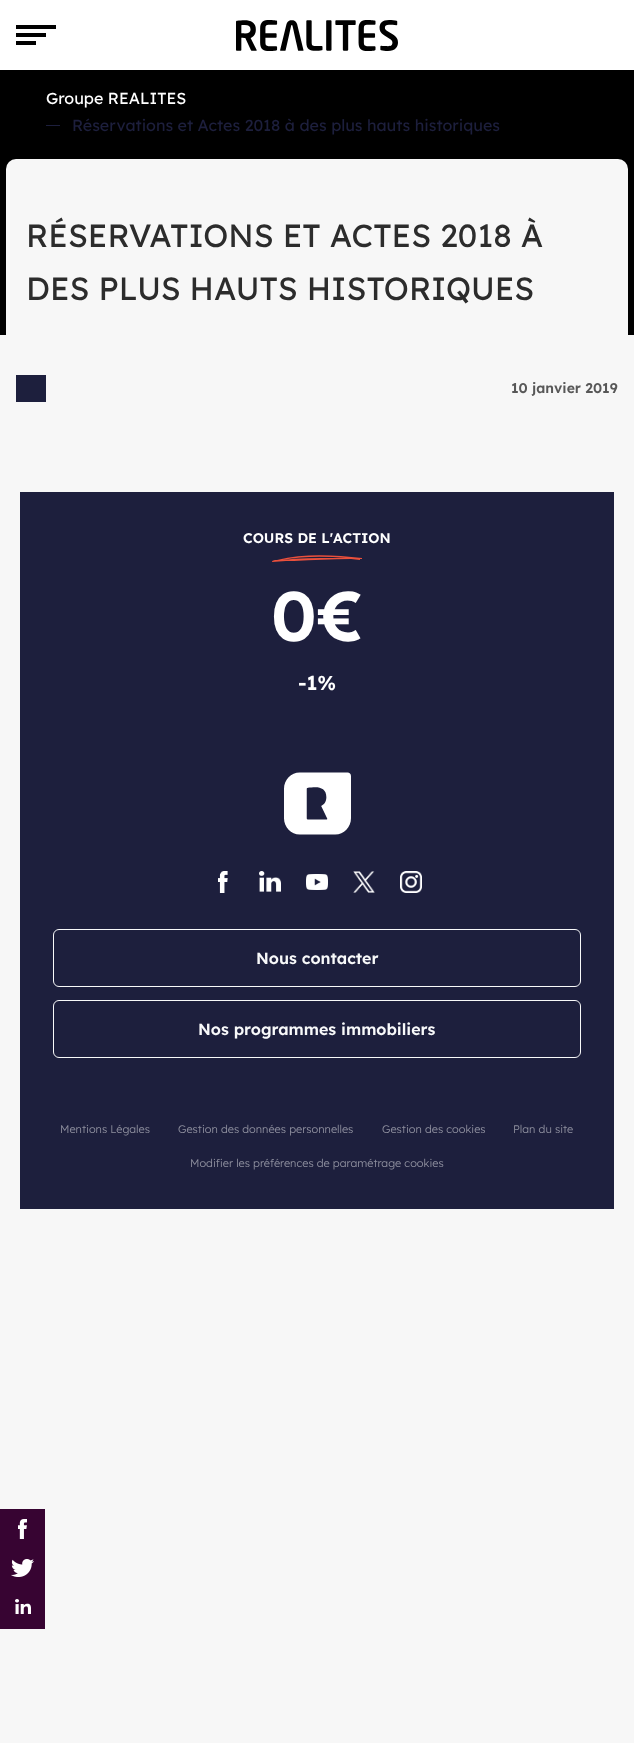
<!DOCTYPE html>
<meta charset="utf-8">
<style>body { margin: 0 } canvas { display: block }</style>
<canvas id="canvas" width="634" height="1743"></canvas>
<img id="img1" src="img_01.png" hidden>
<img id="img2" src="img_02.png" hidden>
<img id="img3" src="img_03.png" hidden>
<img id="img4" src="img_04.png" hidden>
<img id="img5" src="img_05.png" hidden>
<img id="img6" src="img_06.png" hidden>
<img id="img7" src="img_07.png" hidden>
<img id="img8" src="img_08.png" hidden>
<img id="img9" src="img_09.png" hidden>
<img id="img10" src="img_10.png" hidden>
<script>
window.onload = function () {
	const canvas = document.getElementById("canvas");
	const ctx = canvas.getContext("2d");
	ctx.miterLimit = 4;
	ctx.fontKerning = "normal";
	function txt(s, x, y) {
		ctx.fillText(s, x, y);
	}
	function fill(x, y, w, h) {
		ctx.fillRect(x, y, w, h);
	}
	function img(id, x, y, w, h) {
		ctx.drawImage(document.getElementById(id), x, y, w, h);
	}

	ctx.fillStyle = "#F7F7F7";
	fill(0, 0, 634, 1743);
	ctx.fillStyle = "#FFFFFF";
	fill(0, 0, 634, 70);
	ctx.fillStyle = "#000000";
	fill(16, 25, 40, 4);
	fill(16, 33, 30, 4);
	fill(16, 41, 20, 4);
	img("img1", 236, 20, 162, 31);
	fill(0, 70, 634, 265);
	ctx.fillStyle = "#1D1F3D";
	fill(46, 125, 14, 1);
	ctx.fillStyle = "#F7F7F7";
	ctx.beginPath();
	ctx.roundRect(6, 159, 622, 176, [10, 10, 0, 0]);
	ctx.fill();
	ctx.fillStyle = "#1D1F3D";
	fill(16, 375, 30, 27);
	ctx.fillStyle = "#370432";
	fill(0, 1509, 45, 120);
	img("img2", 18, 1519, 9, 20);
	img("img3", 11, 1559, 23, 18);
	img("img4", 15, 1599, 16, 15);
	ctx.fillStyle = "#1D1F3D";
	fill(20, 492, 594, 717);
	ctx.fillStyle = "#EB503C";
	ctx.beginPath();
	ctx.moveTo(334, 558);
	ctx.bezierCurveTo(316, 558, 299, 558, 282, 560);
	ctx.bezierCurveTo(303, 556, 325, 556, 346, 558);
	ctx.lineTo(334, 558);
	ctx.moveTo(362, 558);
	ctx.bezierCurveTo(334, 555, 305, 553, 277, 560);
	ctx.bezierCurveTo(276, 560, 272, 560, 272, 562);
	ctx.lineTo(286, 561);
	ctx.lineTo(294, 561);
	ctx.bezierCurveTo(313, 560, 332, 559, 351, 559);
	ctx.lineTo(360, 560);
	ctx.lineTo(360, 559);
	ctx.lineTo(358, 559);
	ctx.lineTo(362, 559);
	ctx.bezierCurveTo(362, 559, 362, 558, 362, 558);
	ctx.fill();
	img("img5", 284, 772, 67, 63);
	img("img6", 218, 871, 10, 22);
	img("img7", 259, 871, 22, 21);
	img("img8", 306, 874, 22, 16);
	img("img9", 353, 871, 22, 22);
	img("img10", 400, 871, 22, 22);
	ctx.beginPath();
	ctx.roundRect(53.5, 929.5, 527, 57, 5.5);
	ctx.strokeStyle = "#F8F9FA";
	ctx.stroke();
	ctx.beginPath();
	ctx.roundRect(53.5, 1000.5, 527, 57, 5.5);
	ctx.stroke();
	ctx.font = "16px Lexend";
	ctx.fillStyle = "#FFFFFF";
	txt("Groupe REALITES", 46, 104);
	ctx.fillStyle = "#1D1F3D";
	txt("Réservations et Actes 2018 à des plus hauts historiques", 72, 131);
	ctx.font = "32px Lexend";
	ctx.fillStyle = "#2C2C2C";
	txt("RÉSERVATIONS ET ACTES 2018 À", 26, 247);
	txt("DES PLUS HAUTS HISTORIQUES", 26, 300);
	ctx.font = "600 14px Lexend";
	ctx.fillStyle = "#585858";
	txt("10 janvier 2019", 511, 393);
	ctx.fillStyle = "#FFFFFF";
	txt("COURS DE L'ACTION", 243, 543);
	ctx.font = "600 70px Lexend";
	txt("0€", 271, 641);
	ctx.font = "600 20px Lexend";
	txt("-1%", 298, 690);
	ctx.font = "600 16px Lexend";
	ctx.fillStyle = "#F8F9FA";
	txt("Nous contacter", 256, 964);
	txt("Nos programmes immobiliers", 198, 1035);
	ctx.font = "300 11px Lexend";
	ctx.fillStyle = "#8E8F9E";
	txt("Mentions Légales", 60, 1133);
	txt("Gestion des données personnelles", 178, 1133);
	txt("Gestion des cookies", 382, 1133);
	txt("Plan du site", 513, 1133);
	txt("Modifier les préférences de paramétrage cookies", 190, 1167);
};
</script>
